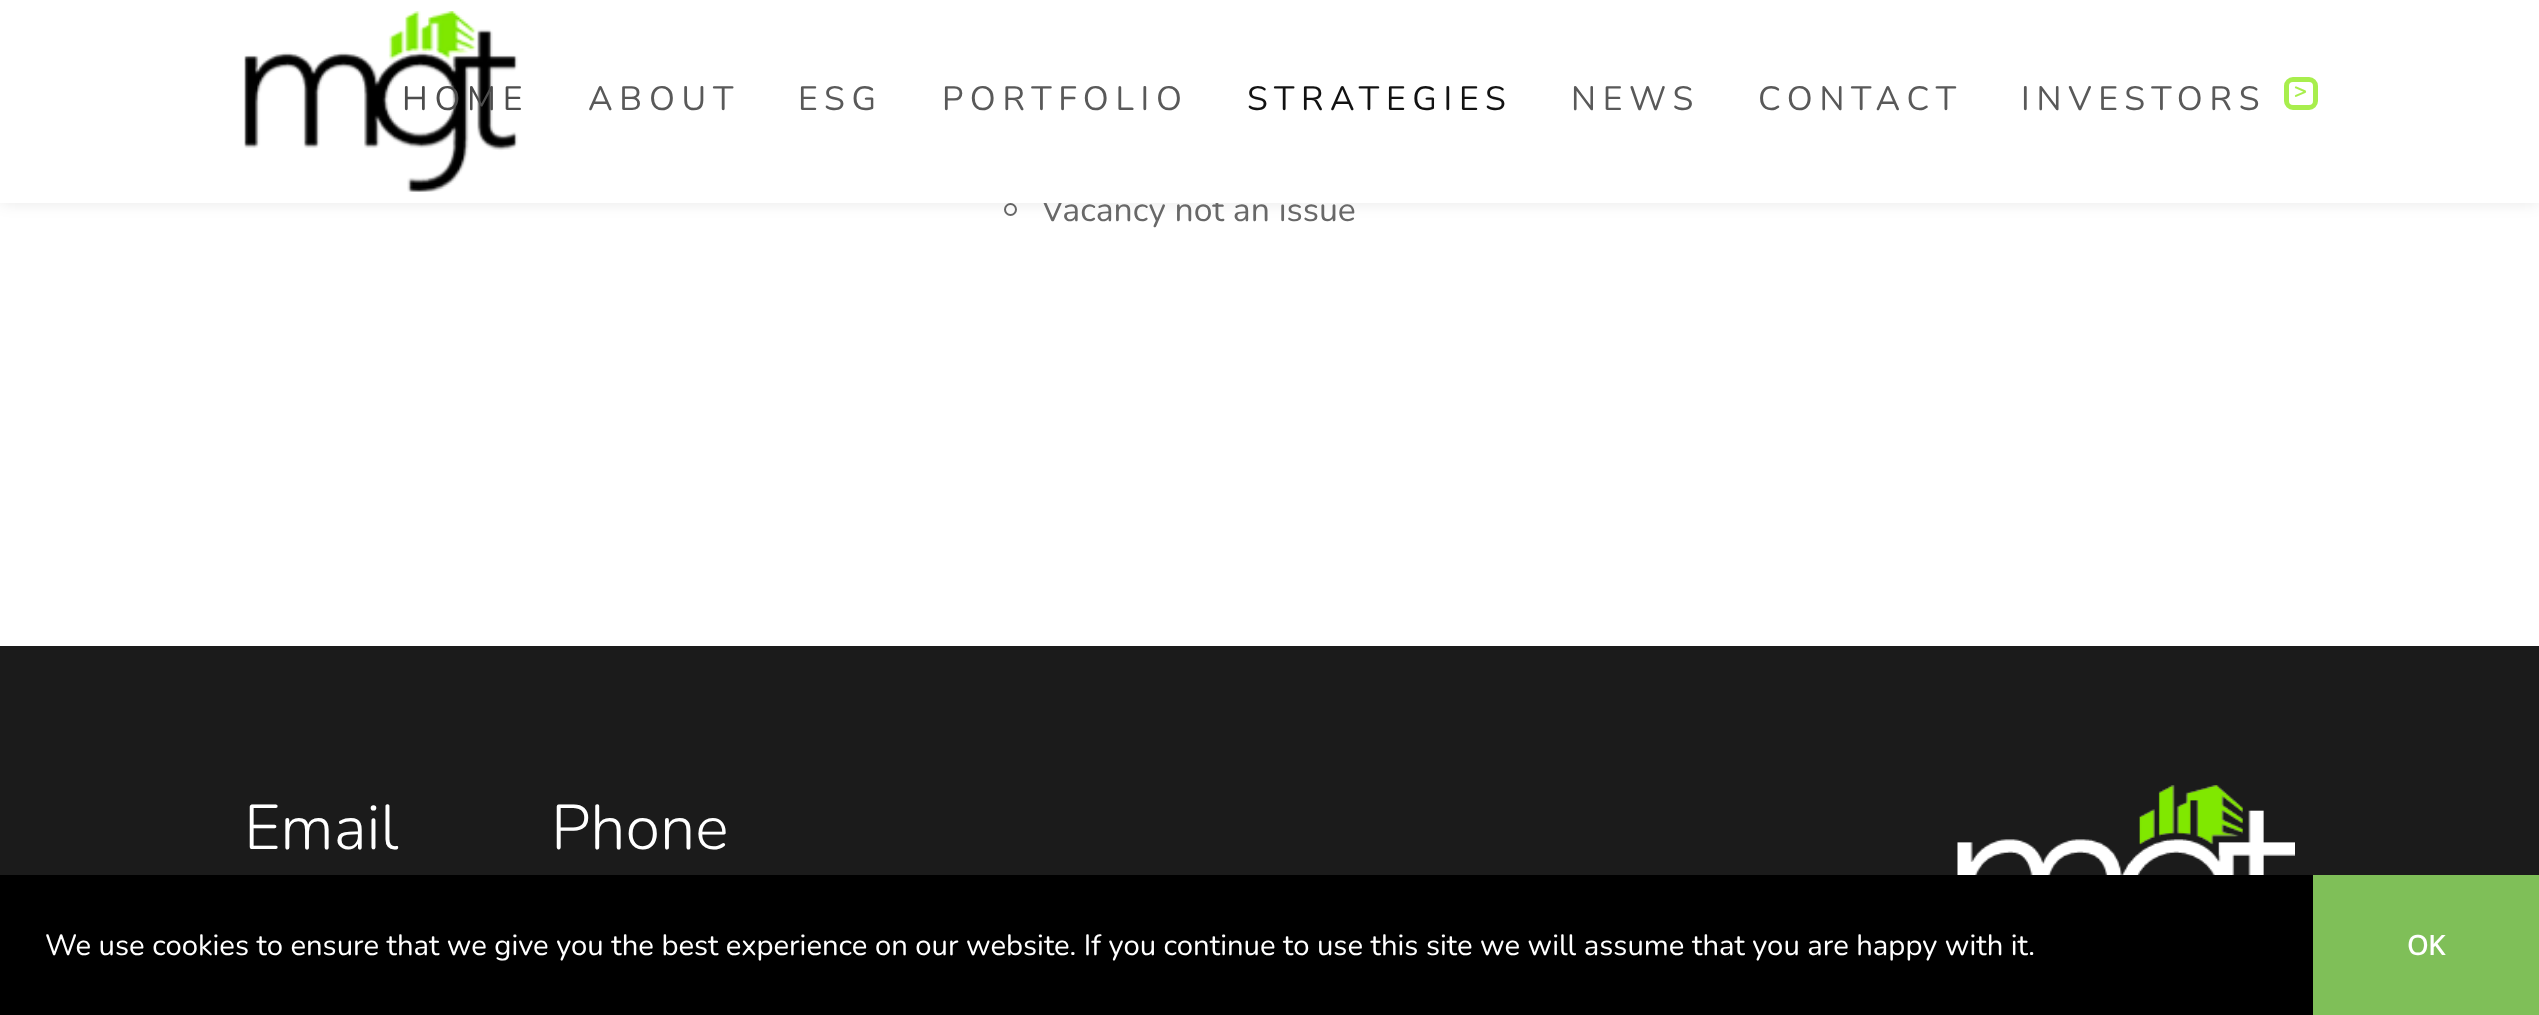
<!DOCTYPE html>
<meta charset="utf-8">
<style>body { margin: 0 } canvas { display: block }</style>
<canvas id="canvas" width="2539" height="1015"></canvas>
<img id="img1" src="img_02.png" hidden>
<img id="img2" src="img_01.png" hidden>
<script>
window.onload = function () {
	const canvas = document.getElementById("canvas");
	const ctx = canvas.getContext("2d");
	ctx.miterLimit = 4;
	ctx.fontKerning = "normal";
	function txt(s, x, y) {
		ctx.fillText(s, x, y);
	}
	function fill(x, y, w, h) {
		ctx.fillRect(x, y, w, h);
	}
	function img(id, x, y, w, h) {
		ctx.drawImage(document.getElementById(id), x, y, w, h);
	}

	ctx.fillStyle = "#FFFFFF";
	fill(0, 0, 2539, 1015);
	ctx.beginPath();
	ctx.arc(1010.5, 209.5, 5.5, 0, Math.PI * 2);
	ctx.strokeStyle = "#686868";
	ctx.lineWidth = 2;
	ctx.stroke();
	ctx.fillStyle = "rgba(0, 0, 0, 0.09)";
	ctx.filter = "blur(8px)";
	ctx.beginPath();
	ctx.rect(0, 0, 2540, 203);
	ctx.fill();
	ctx.filter = "none";
	ctx.fillStyle = "#1B1B1B";
	fill(0, 646, 2539, 229);
	img("img1", 1957, 785, 338, 90);
	ctx.fillStyle = "#000000";
	fill(0, 875, 2313, 140);
	ctx.fillStyle = "#7FBF58";
	fill(2313, 875, 226, 140);
	ctx.font = "33.75px Nunito";
	ctx.fillStyle = "#686868";
	txt("Vacancy not an issue", 1041, 221);
	ctx.fillStyle = "#FFFFFF";
	fill(0, 0, 2539, 203);
	ctx.beginPath();
	ctx.roundRect(2286.5, 79.5, 29, 28, 6.5);
	ctx.strokeStyle = "#A8EE4D";
	ctx.lineWidth = 5;
	ctx.stroke();
	ctx.letterSpacing = "6.75px";
	ctx.font = "bold 22px Nunito";
	ctx.fillStyle = "#A8EE4D";
	txt(">", 2294, 98);
	ctx.font = "33.75px Nunito";
	ctx.fillStyle = "#595959";
	txt("INVESTORS", 2021, 110);
	txt("CONTACT", 1758, 110);
	txt("NEWS", 1571, 110);
	ctx.fillStyle = "#121212";
	txt("STRATEGIES", 1247, 110);
	ctx.fillStyle = "#595959";
	txt("PORTFOLIO", 942, 110);
	txt("ESG", 798, 110);
	txt("ABOUT", 588, 110);
	img("img2", 244, 11, 274, 181);
	ctx.fillStyle = "#4D4D4D";
	txt("HOME", 402, 110);
	ctx.letterSpacing = "0px";
	ctx.font = "300 63px Nunito";
	ctx.fillStyle = "#FFFFFF";
	txt("Email", 244, 849);
	txt("Phone", 551, 849);
	ctx.font = "29.25px Nunito";
	txt("We use cookies to ensure that we give you the best experience on our website. If you continue to use this site we will assume that you are happy with it.", 45, 955);
	ctx.font = "bold 27px Open Sans";
	txt("OK", 2407, 955);
};
</script>
